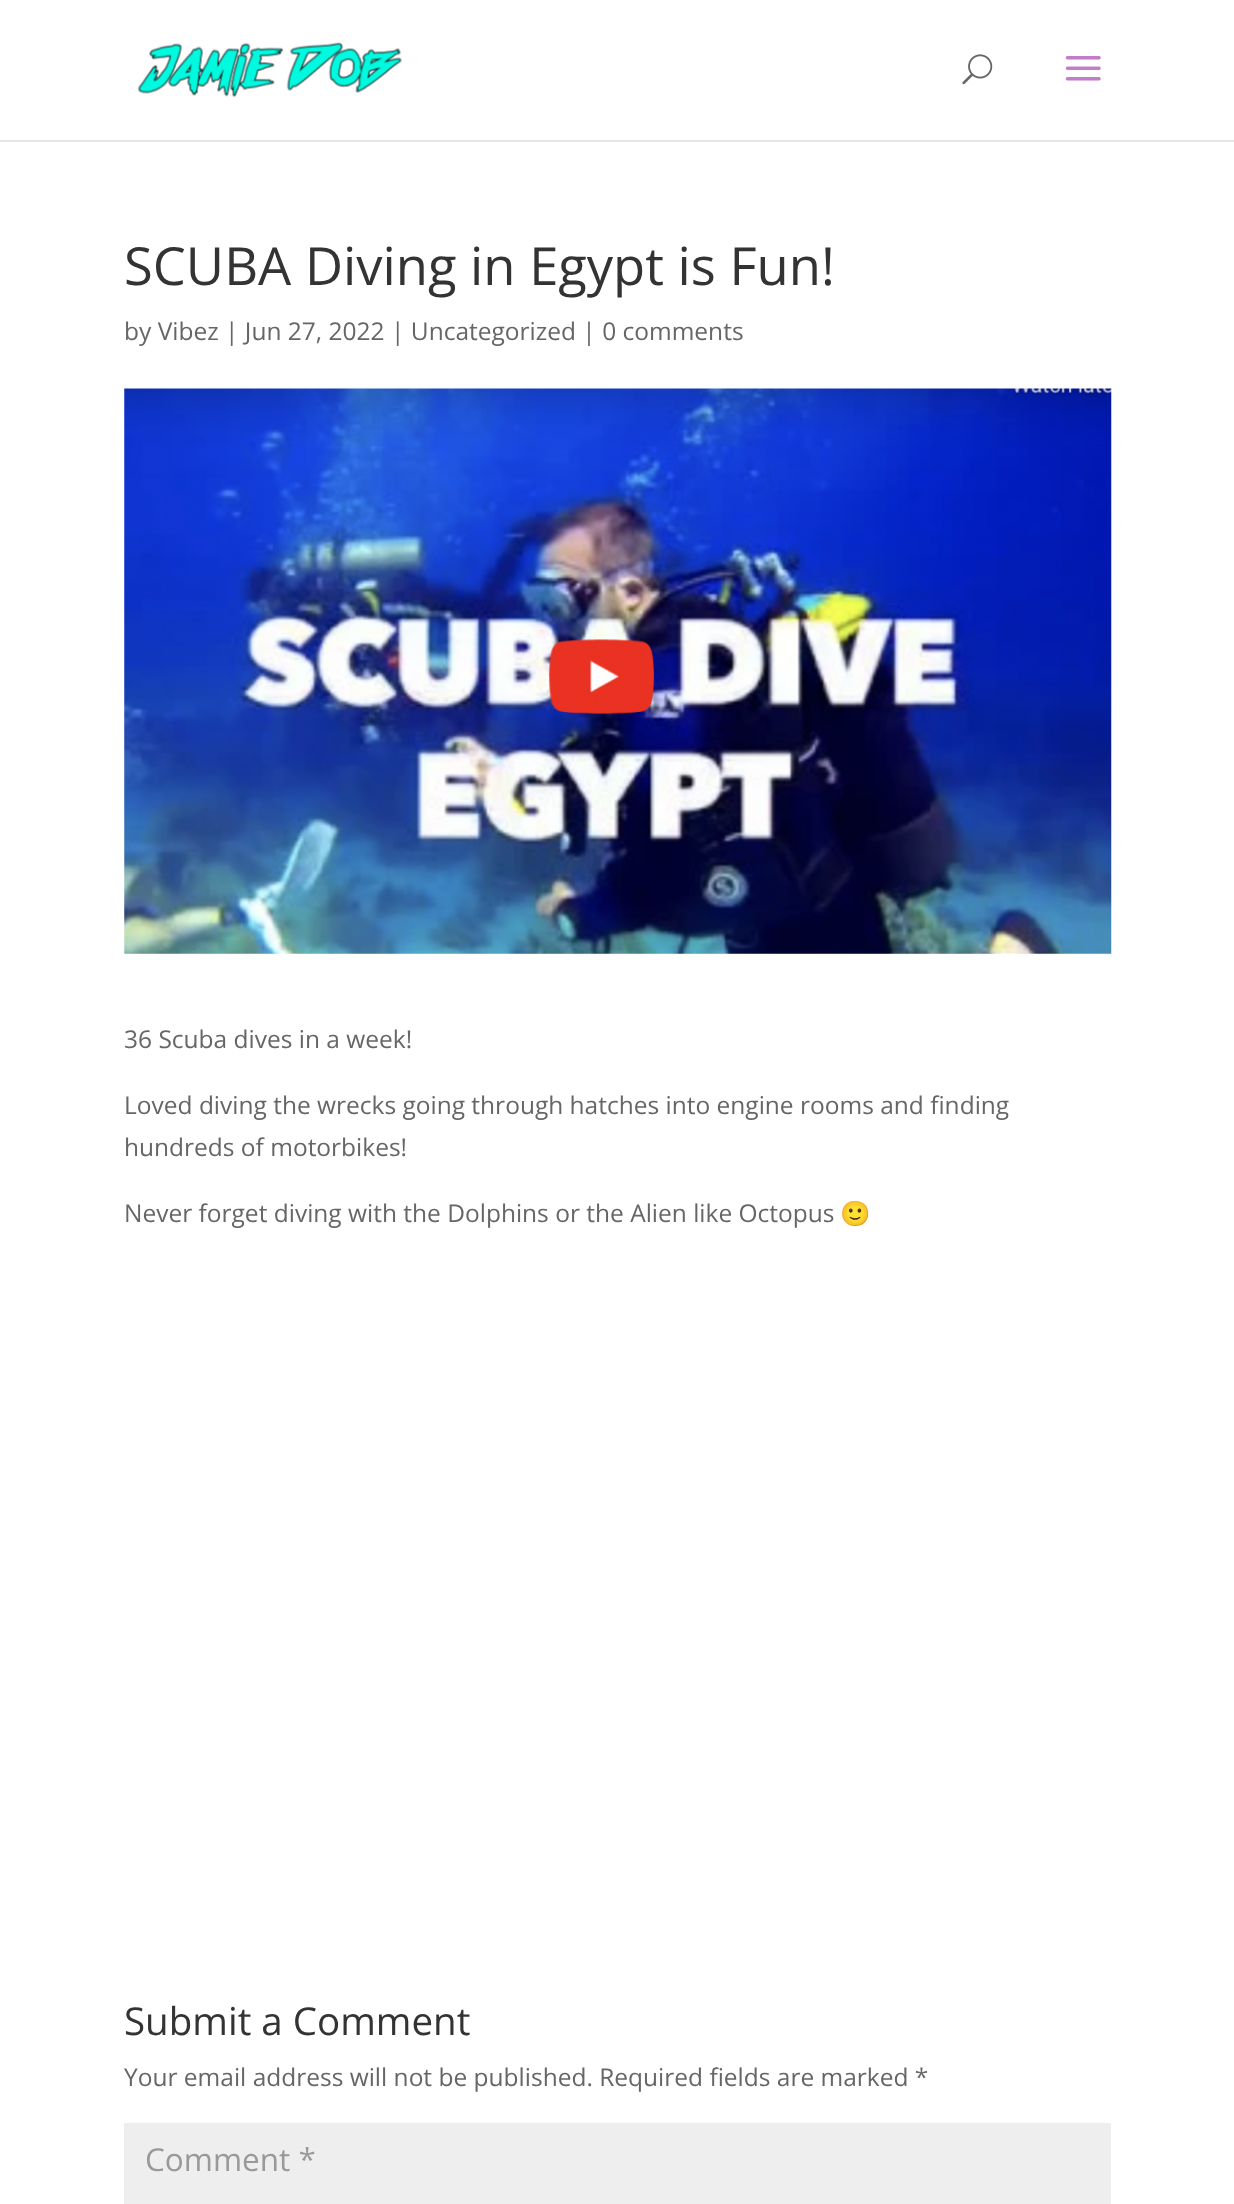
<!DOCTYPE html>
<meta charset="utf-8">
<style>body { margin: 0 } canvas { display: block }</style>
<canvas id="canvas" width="1234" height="2204"></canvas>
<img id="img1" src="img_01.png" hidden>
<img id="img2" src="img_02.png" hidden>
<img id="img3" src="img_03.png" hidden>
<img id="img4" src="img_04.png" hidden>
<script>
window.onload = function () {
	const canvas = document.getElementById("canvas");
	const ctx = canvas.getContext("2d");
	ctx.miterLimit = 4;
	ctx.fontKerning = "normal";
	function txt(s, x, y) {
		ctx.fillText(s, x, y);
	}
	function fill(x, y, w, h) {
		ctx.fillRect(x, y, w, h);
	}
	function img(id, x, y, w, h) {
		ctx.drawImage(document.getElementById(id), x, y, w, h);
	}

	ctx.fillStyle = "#FFFFFF";
	fill(0, 0, 1234, 2204);
	ctx.fillStyle = "#E6E6E6";
	ctx.beginPath();
	ctx.moveTo(0, 140);
	ctx.lineTo(0, 142);
	ctx.lineTo(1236, 142);
	ctx.lineTo(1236, 2);
	ctx.lineTo(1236, 140);
	ctx.closePath();
	ctx.fill();
	img("img1", 137, 42, 265, 55);
	img("img2", 962, 54, 31, 31);
	img("img3", 1065, 56, 36, 25);
	img("img4", 124, 388, 988, 566);
	ctx.fillStyle = "#EEEEEE";
	fill(124, 2123, 987, 81);
	ctx.font = "52.5px Open Sans";
	ctx.fillStyle = "#333333";
	txt("SCUBA Diving in Egypt is Fun!", 124, 285);
	ctx.font = "24.5px Open Sans";
	ctx.fillStyle = "#666666";
	txt("by Vibez | Jun 27, 2022 | Uncategorized | 0 comments", 124, 340);
	txt("36 Scuba dives in a week!", 124, 1048);
	txt("Loved diving the wrecks going through hatches into engine rooms and finding", 124, 1114);
	txt("hundreds of motorbikes!", 124, 1156);
	txt("Never forget diving with the Dolphins or the Alien like Octopus", 124, 1222);
	ctx.font = "24.5px Noto Color Emoji";
	txt("🙂", 840, 1222);
	ctx.font = "38.5px Open Sans";
	ctx.fillStyle = "#333333";
	txt("Submit a Comment", 124, 2035);
	ctx.font = "24.5px Open Sans";
	ctx.fillStyle = "#666666";
	txt("Your email address will not be published. Required fields are marked *", 124, 2086);
	ctx.font = "31.5px Open Sans";
	ctx.fillStyle = "#999999";
	txt("Comment *", 145, 2171);
};
</script>
